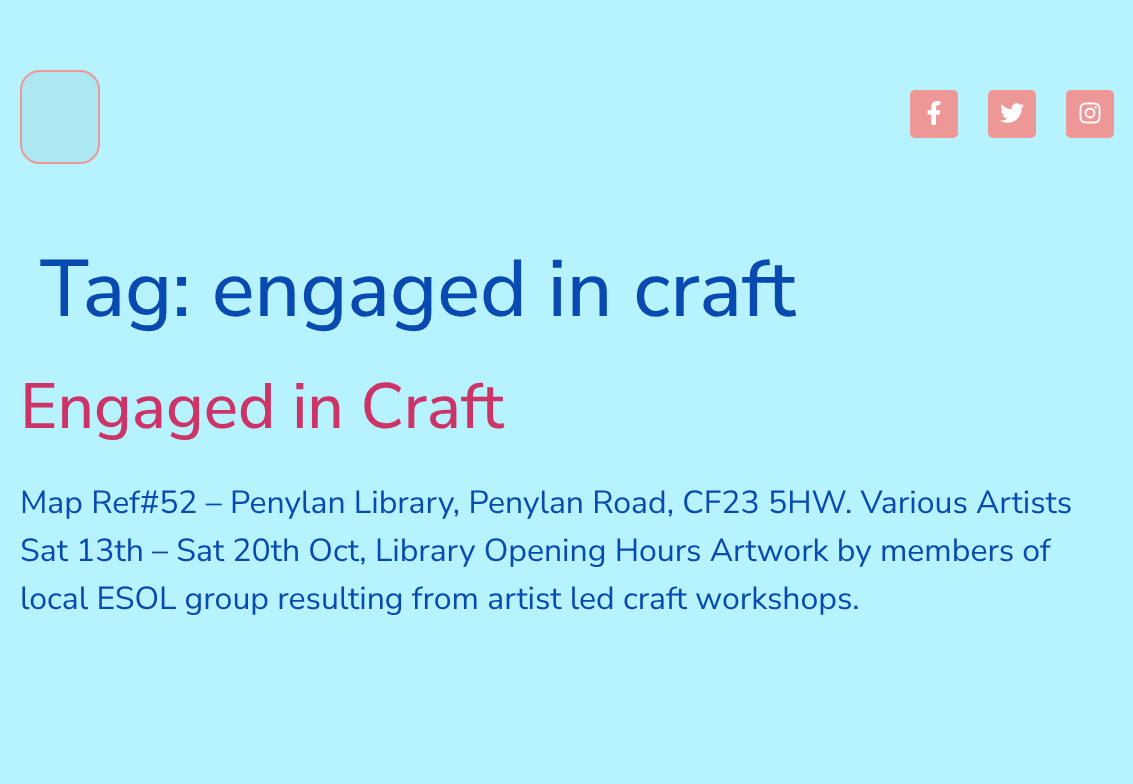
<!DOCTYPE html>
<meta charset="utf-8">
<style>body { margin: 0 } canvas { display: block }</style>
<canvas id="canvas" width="1133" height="784"></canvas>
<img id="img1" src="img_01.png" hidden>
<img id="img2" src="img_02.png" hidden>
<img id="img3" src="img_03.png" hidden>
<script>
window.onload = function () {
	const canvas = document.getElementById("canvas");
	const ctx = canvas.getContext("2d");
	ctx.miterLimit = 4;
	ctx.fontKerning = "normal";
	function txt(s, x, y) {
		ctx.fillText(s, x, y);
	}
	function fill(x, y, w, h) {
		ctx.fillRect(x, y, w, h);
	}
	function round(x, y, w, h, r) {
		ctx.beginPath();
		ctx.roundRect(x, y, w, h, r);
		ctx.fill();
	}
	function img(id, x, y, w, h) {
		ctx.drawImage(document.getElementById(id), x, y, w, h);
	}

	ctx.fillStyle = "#B6F3FF";
	fill(0, 0, 1133, 784);
	ctx.fillStyle = "#ADE7F2";
	ctx.beginPath();
	ctx.roundRect(21, 71, 78, 92, 19);
	ctx.fill();
	ctx.strokeStyle = "#ED9797";
	ctx.lineWidth = 2;
	ctx.stroke();
	ctx.fillStyle = "#ED9797";
	round(910, 90, 48, 48, 5);
	img("img1", 927, 101, 14, 24);
	round(988, 90, 48, 48, 5);
	img("img2", 1000, 103, 24, 20);
	round(1066, 90, 48, 48, 5);
	img("img3", 1079, 102, 22, 22);
	ctx.font = "500 80px Nunito Sans";
	ctx.fillStyle = "#094AB1";
	txt("Tag: engaged in craft", 40, 316);
	ctx.font = "500 64px Nunito Sans";
	ctx.fillStyle = "#CC3366";
	txt("Engaged in Craft", 20, 428);
	ctx.font = "32px Nunito Sans";
	ctx.fillStyle = "#094AB1";
	txt("Map Ref#52 – Penylan Library, Penylan Road, CF23 5HW. Various Artists", 20, 513);
	txt("Sat 13th – Sat 20th Oct, Library Opening Hours Artwork by members of", 20, 561);
	txt("local ESOL group resulting from artist led craft workshops.", 20, 609);
};
</script>
